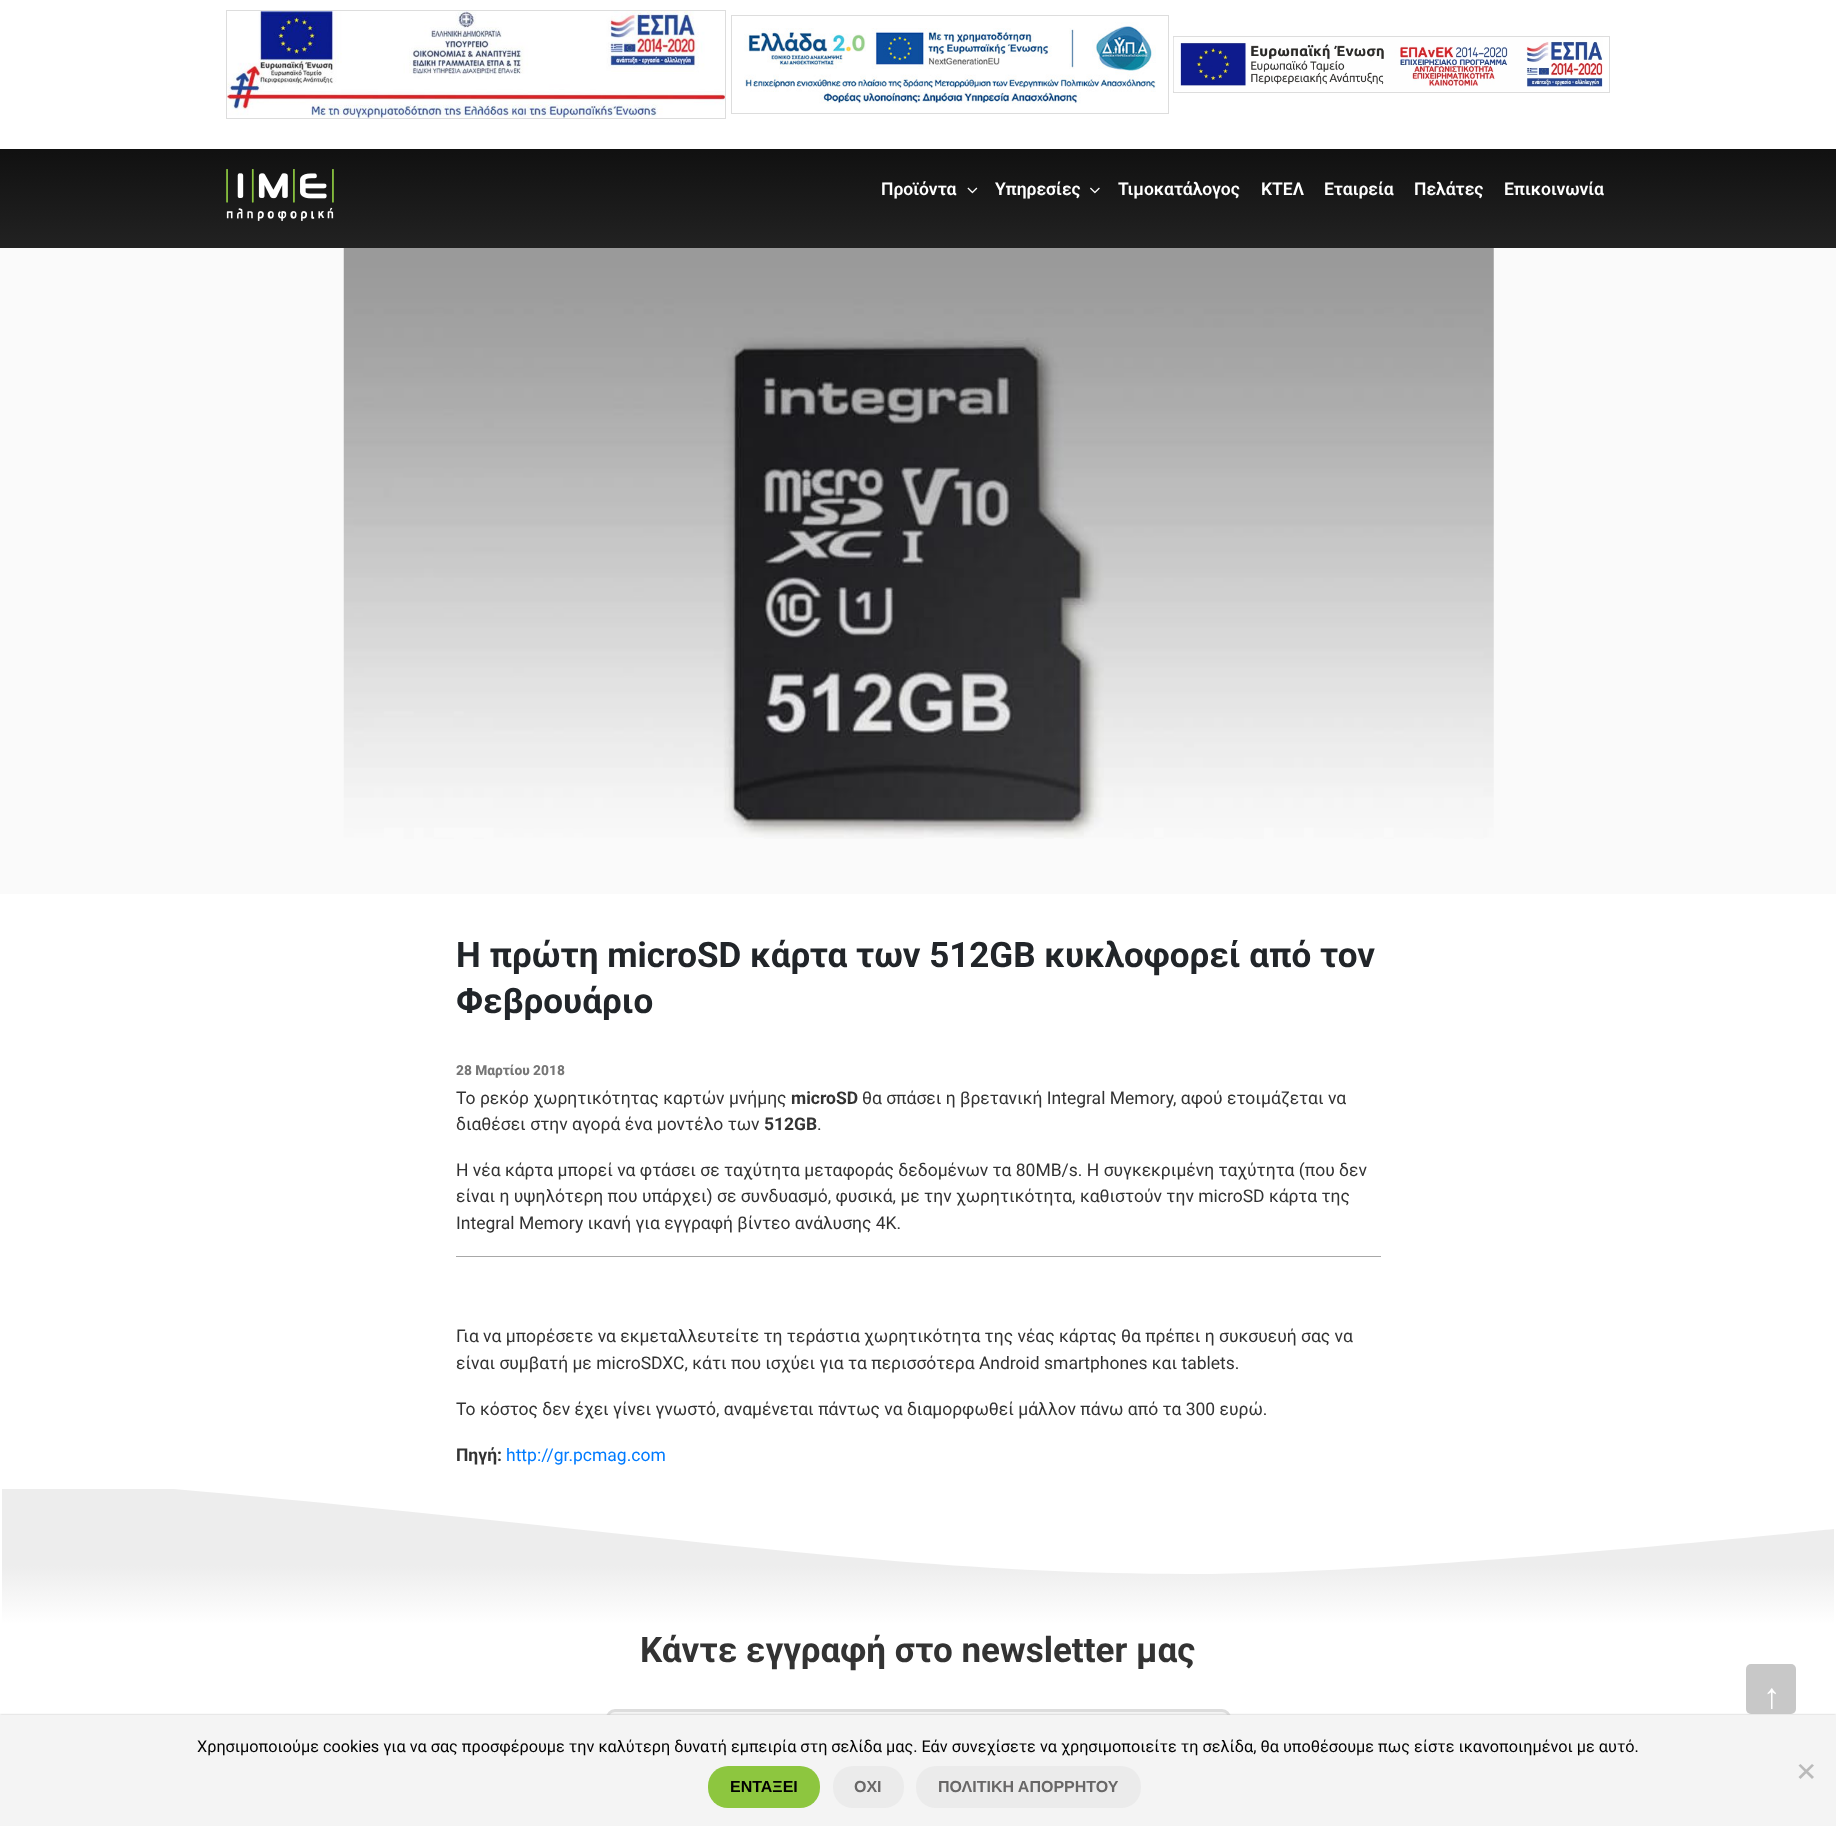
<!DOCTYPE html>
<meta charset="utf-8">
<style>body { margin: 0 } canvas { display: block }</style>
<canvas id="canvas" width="1836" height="1826"></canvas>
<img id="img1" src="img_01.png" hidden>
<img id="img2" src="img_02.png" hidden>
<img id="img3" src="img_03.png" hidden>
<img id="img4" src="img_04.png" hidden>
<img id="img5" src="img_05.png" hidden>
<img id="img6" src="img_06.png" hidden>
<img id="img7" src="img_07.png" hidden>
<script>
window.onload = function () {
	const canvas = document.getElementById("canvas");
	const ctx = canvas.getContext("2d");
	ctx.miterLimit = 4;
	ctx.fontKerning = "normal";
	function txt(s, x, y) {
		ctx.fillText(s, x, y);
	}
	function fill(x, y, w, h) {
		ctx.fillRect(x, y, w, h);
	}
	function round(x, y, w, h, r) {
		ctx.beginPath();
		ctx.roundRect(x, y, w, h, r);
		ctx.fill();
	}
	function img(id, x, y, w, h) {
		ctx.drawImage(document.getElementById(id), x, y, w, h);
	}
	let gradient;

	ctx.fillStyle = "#FFFFFF";
	fill(0, 0, 1836, 1826);
	ctx.strokeStyle = "#DDDDDD";
	ctx.strokeRect(226.5, 10.5, 499, 108);
	img("img1", 227, 11, 498, 107);
	ctx.strokeRect(731.5, 15.5, 437, 98);
	img("img2", 744, 22, 412, 82);
	ctx.strokeRect(1173.5, 36.5, 436, 56);
	img("img3", 1173, 37, 430, 54);
	gradient = ctx.createLinearGradient(918, 149, 918, 248);
	gradient.addColorStop(0, "#111111");
	gradient.addColorStop(0.02, "#111111");
	gradient.addColorStop(1, "#222222");
	ctx.fillStyle = gradient;
	fill(0, 149, 1836, 99);
	img("img4", 226, 169, 108, 52);
	img("img5", 967, 187, 11, 7);
	img("img6", 1090, 187, 10, 7);
	ctx.fillStyle = "#FAFAFA";
	fill(0, 248, 1836, 646);
	img("img7", 343, 248, 1151, 591);
	ctx.fillStyle = "#A8A8A8";
	fill(456, 1256, 925, 1);
	ctx.save();
	ctx.beginPath();
	ctx.rect(0, 1489, 1836, 157);
	ctx.clip();
	gradient = ctx.createLinearGradient(918, 1624, 918, 1566);
	gradient.addColorStop(0, "#FFFFFF");
	gradient.addColorStop(1, "#EDEDED");
	ctx.fillStyle = gradient;
	ctx.beginPath();
	ctx.moveTo(1186, 1574);
	ctx.bezierCurveTo(986, 1573, 842, 1558, 509, 1522);
	ctx.bezierCurveTo(226, 1492, 49, 1478, 2, 1475);
	ctx.lineTo(2, 1646);
	ctx.lineTo(1834, 1646);
	ctx.lineTo(1834, 1529);
	ctx.bezierCurveTo(1757, 1537, 1379, 1575, 1186, 1574);
	ctx.closePath();
	ctx.fill();
	ctx.restore();
	ctx.fillStyle = "#F4F4F4";
	ctx.beginPath();
	ctx.roundRect(607.5, 1710.5, 622, 64, 7.5);
	ctx.fill();
	ctx.lineWidth = 3;
	ctx.stroke();
	ctx.fillStyle = "#C8C8C8";
	round(1746, 1664, 50, 50, 5);
	ctx.fillStyle = "#BBBBBB";
	ctx.filter = "blur(1px)";
	ctx.beginPath();
	ctx.rect(0, 1715, 1836, 111);
	ctx.fill();
	ctx.filter = "none";
	ctx.fillStyle = "#F4F4F4";
	fill(0, 1715, 1836, 111);
	ctx.fillStyle = "#BABABA";
	ctx.beginPath();
	ctx.moveTo(1812, 1764);
	ctx.lineTo(1814, 1765.5);
	ctx.lineTo(1800.5, 1779);
	ctx.lineTo(1798.5, 1777);
	ctx.closePath();
	ctx.fill();
	ctx.beginPath();
	ctx.moveTo(1798.5, 1765.5);
	ctx.lineTo(1800.5, 1764);
	ctx.lineTo(1814, 1777);
	ctx.lineTo(1812, 1779);
	ctx.closePath();
	ctx.fill();
	ctx.fillStyle = "#8DC63F";
	round(708, 1766, 112, 42, 20);
	ctx.fillStyle = "#EBEBEB";
	round(833, 1766, 71, 42, 20);
	round(916, 1766, 225, 42, 20);
	ctx.font = "600 17.5px Roboto";
	ctx.fillStyle = "#FFFFFF";
	txt("Προϊόντα", 881, 195);
	txt("Υπηρεσίες", 995, 195);
	txt("Τιμοκατάλογος", 1118, 195);
	txt("ΚΤΕΛ", 1261, 195);
	txt("Εταιρεία", 1324, 195);
	txt("Πελάτες", 1414, 195);
	txt("Επικοινωνία", 1504, 195);
	ctx.font = "bold 35px Roboto";
	ctx.fillStyle = "#212529";
	txt("Η πρώτη microSD κάρτα των 512GB κυκλοφορεί από τον", 456, 967);
	txt("Φεβρουάριο", 456, 1013);
	ctx.font = "800 13.75px Roboto";
	ctx.fillStyle = "#767676";
	txt("28 Μαρτίου 2018", 456, 1075);
	ctx.font = "17.5px Roboto";
	ctx.fillStyle = "#333333";
	txt("Το ρεκόρ χωρητικότητας καρτών μνήμης", 456, 1104);
	ctx.font = "bold 17.5px Roboto";
	txt("microSD", 791, 1104);
	ctx.font = "17.5px Roboto";
	txt("θα σπάσει η βρετανική Integral Memory, αφού ετοιμάζεται να", 862, 1104);
	txt("διαθέσει στην αγορά ένα μοντέλο των", 456, 1130);
	ctx.font = "bold 17.5px Roboto";
	txt("512GB", 764, 1130);
	ctx.font = "17.5px Roboto";
	txt(".", 817, 1130);
	txt("Η νέα κάρτα μπορεί να φτάσει σε ταχύτητα μεταφοράς δεδομένων τα 80MB/s. Η συγκεκριμένη ταχύτητα (που δεν", 456, 1176);
	txt("είναι η υψηλότερη που υπάρχει) σε συνδυασμό, φυσικά, με την χωρητικότητα, καθιστούν την microSD κάρτα της", 456, 1202);
	txt("Integral Memory ικανή για εγγραφή βίντεο ανάλυσης 4Κ.", 456, 1229);
	txt("Για να μπορέσετε να εκμεταλλευτείτε τη τεράστια χωρητικότητα της νέας κάρτας θα πρέπει η συκσυευή σας να", 456, 1342);
	txt("είναι συμβατή με microSDXC, κάτι που ισχύει για τα περισσότερα Android smartphones και tablets.", 456, 1369);
	txt("Το κόστος δεν έχει γίνει γνωστό, αναμένεται πάντως να διαμορφωθεί μάλλον πάνω από τα 300 ευρώ.", 456, 1415);
	ctx.font = "bold 17.5px Roboto";
	txt("Πηγή:", 456, 1461);
	ctx.font = "17.5px Roboto";
	ctx.fillStyle = "#007BFF";
	txt("http://gr.pcmag.com", 506, 1461);
	ctx.font = "bold 35px Roboto";
	ctx.fillStyle = "#333333";
	txt("Κάντε εγγραφή στο newsletter μας", 640, 1662);
	ctx.font = "35px Liberation Serif";
	ctx.fillStyle = "#FFFFFF";
	txt("↑", 1763, 1708);
	ctx.font = "16.25px Roboto";
	ctx.fillStyle = "#020202";
	txt("Χρησιμοποιούμε cookies για να σας προσφέρουμε την καλύτερη δυνατή εμπειρία στη σελίδα μας. Εάν συνεχίσετε να χρησιμοποιείτε τη σελίδα, θα υποθέσουμε πως είστε ικανοποιημένοι με αυτό.", 197, 1752);
	ctx.font = "bold 16px Liberation Sans";
	txt("ΕΝΤΑΞΕΙ", 730, 1792);
	ctx.fillStyle = "#686767";
	txt("ΟΧΙ", 854, 1792);
	txt("ΠΟΛΙΤΙΚΗ ΑΠΟΡΡΗΤΟΥ", 938, 1792);
};
</script>
